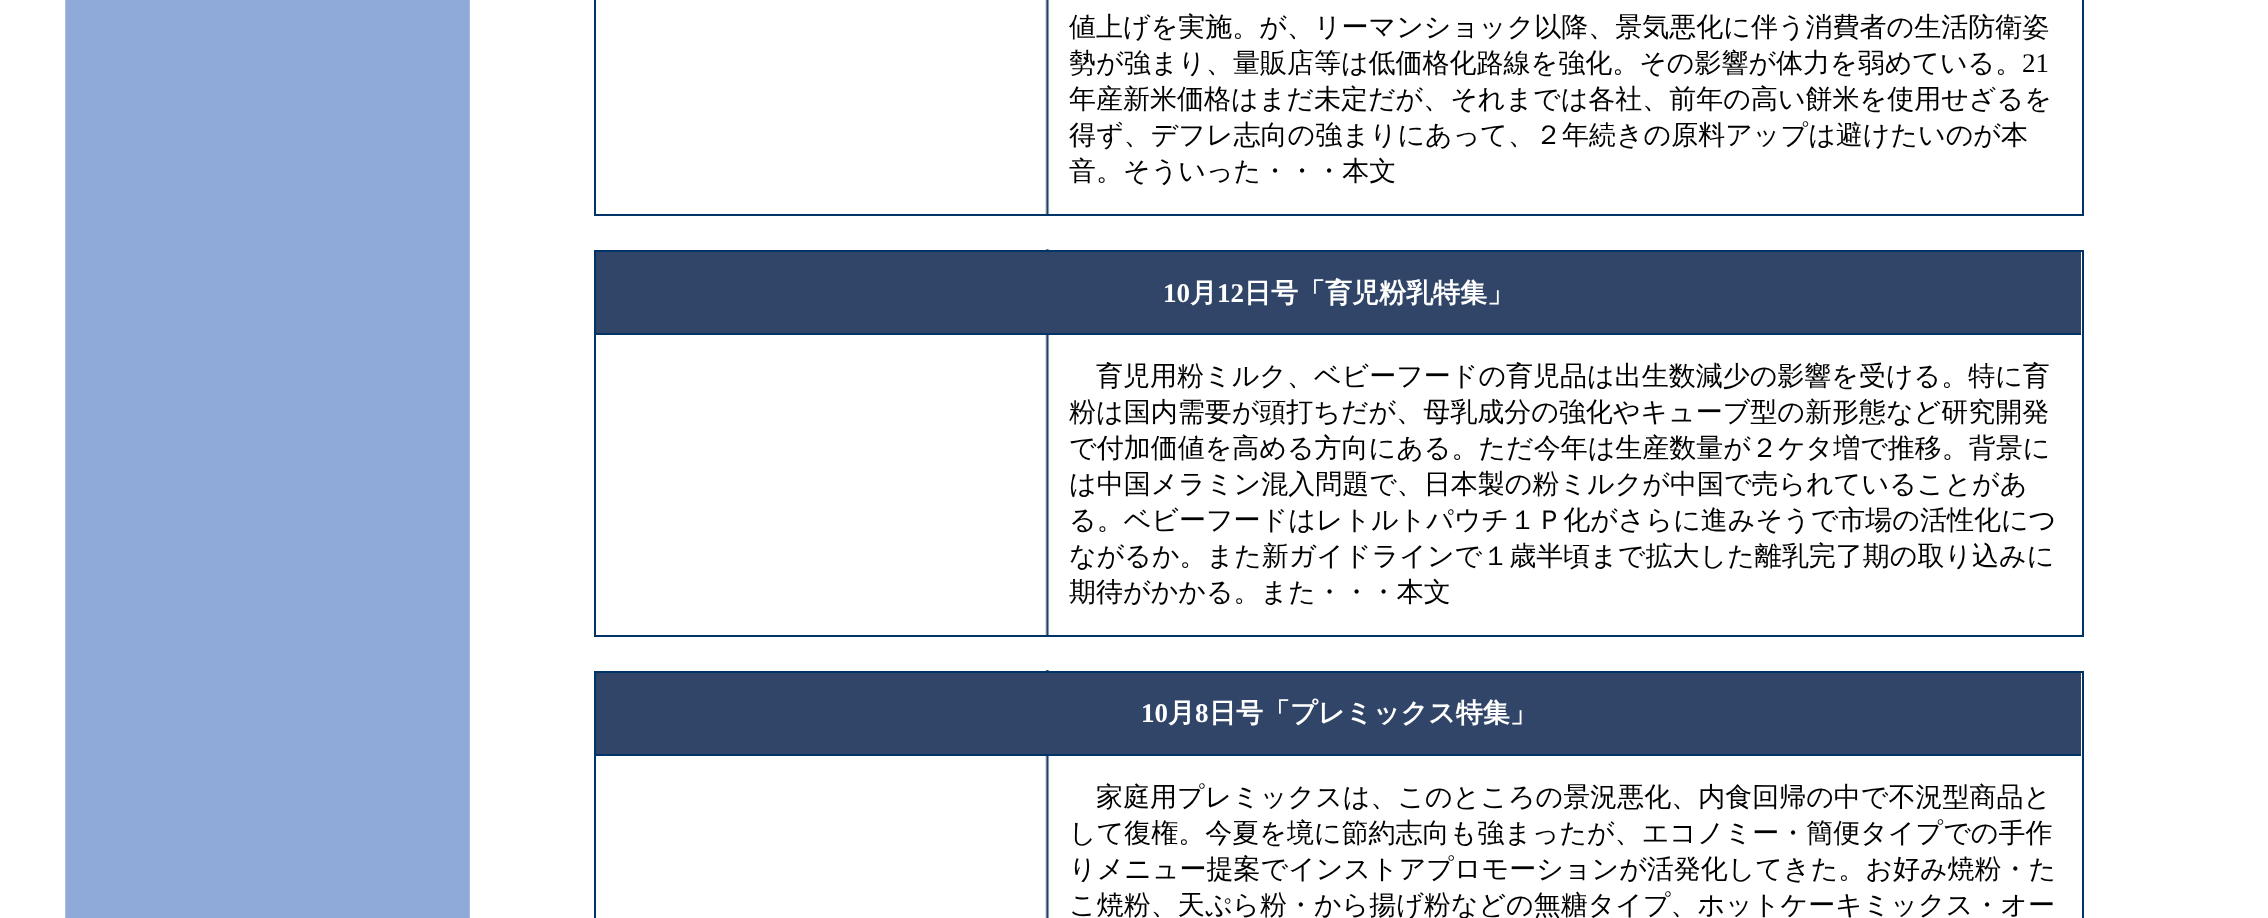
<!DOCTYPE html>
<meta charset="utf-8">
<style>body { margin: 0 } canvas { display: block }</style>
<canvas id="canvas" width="2268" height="918"></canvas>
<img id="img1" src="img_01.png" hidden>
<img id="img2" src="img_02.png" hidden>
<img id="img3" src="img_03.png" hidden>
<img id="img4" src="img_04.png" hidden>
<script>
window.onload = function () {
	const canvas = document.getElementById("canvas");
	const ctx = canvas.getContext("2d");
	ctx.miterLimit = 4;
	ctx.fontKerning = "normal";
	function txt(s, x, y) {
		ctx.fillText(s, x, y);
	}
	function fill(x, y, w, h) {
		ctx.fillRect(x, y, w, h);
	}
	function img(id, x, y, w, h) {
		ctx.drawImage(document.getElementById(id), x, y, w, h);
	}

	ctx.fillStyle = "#FFFFFF";
	fill(0, 0, 2268, 918);
	img("img1", 65, 0, 405, 918);
	img("img2", 1045, 0, 5, 214);
	ctx.strokeStyle = "#003366";
	ctx.lineWidth = 2;
	ctx.strokeRect(595, -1, 1488, 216);
	img("img3", 1045, 249, 5, 386);
	ctx.strokeRect(595, 251, 1488, 385);
	ctx.fillStyle = "#304567";
	fill(596, 252, 1485, 81);
	ctx.fillStyle = "#003366";
	fill(596, 333, 1485, 2);
	img("img4", 1045, 670, 5, 248);
	ctx.strokeRect(595, 672, 1488, 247);
	ctx.fillStyle = "#304567";
	fill(596, 673, 1485, 81);
	ctx.fillStyle = "#003366";
	fill(596, 754, 1485, 2);
	ctx.font = "500 27px WenQuanYi Zen Hei";
	ctx.fillStyle = "#000000";
	txt("値上げを実施。が、リーマンショック以降、景気悪化に伴う消費者の生活防衛姿", 1069, 36);
	txt("勢が強まり、量販店等は低価格化路線を強化。その影響が体力を弱めている。", 1069, 72);
	ctx.font = "27px Liberation Serif";
	txt("21", 2022, 72);
	ctx.font = "500 27px WenQuanYi Zen Hei";
	txt("年産新米価格はまだ未定だが、それまでは各社、前年の高い餅米を使用せざるを", 1069, 108);
	txt("得ず、デフレ志向の強まりにあって、２年続きの原料アップは避けたいのが本", 1069, 144);
	txt("音。そういった・・・本文", 1069, 180);
	ctx.font = "bold 27px Liberation Serif";
	ctx.fillStyle = "#FFFFFF";
	txt("10", 1163, 302);
	ctx.font = "bold 27px WenQuanYi Zen Hei";
	txt("月", 1190, 302);
	ctx.font = "bold 27px Liberation Serif";
	txt("12", 1217, 302);
	ctx.font = "bold 27px WenQuanYi Zen Hei";
	txt("日号「育児粉乳特集」", 1244, 302);
	ctx.font = "500 27px WenQuanYi Zen Hei";
	ctx.fillStyle = "#000000";
	txt("育児用粉ミルク、ベビーフードの育児品は出生数減少の影響を受ける。特に育", 1096, 385);
	txt("粉は国内需要が頭打ちだが、母乳成分の強化やキューブ型の新形態など研究開発", 1069, 421);
	txt("で付加価値を高める方向にある。ただ今年は生産数量が２ケタ増で推移。背景に", 1069, 457);
	txt("は中国メラミン混入問題で、日本製の粉ミルクが中国で売られていることがあ", 1069, 493);
	txt("る。ベビーフードはレトルトパウチ１Ｐ化がさらに進みそうで市場の活性化につ", 1069, 529);
	txt("ながるか。また新ガイドラインで１歳半頃まで拡大した離乳完了期の取り込みに", 1069, 565);
	txt("期待がかかる。また・・・本文", 1069, 601);
	ctx.font = "bold 27px Liberation Serif";
	ctx.fillStyle = "#FFFFFF";
	txt("10", 1141, 722);
	ctx.font = "bold 27px WenQuanYi Zen Hei";
	txt("月", 1168, 722);
	ctx.font = "bold 27px Liberation Serif";
	txt("8", 1195, 722);
	ctx.font = "bold 27px WenQuanYi Zen Hei";
	txt("日号「プレミックス特集」", 1209, 722);
	ctx.font = "500 27px WenQuanYi Zen Hei";
	ctx.fillStyle = "#000000";
	txt("家庭用プレミックスは、このところの景況悪化、内食回帰の中で不況型商品と", 1096, 806);
	txt("して復権。今夏を境に節約志向も強まったが、エコノミー・簡便タイプでの手作", 1069, 842);
	txt("りメニュー提案でインストアプロモーションが活発化してきた。お好み焼粉・た", 1069, 878);
	txt("こ焼粉、天ぷら粉・から揚げ粉などの無糖タイプ、ホットケーキミックス・オー", 1069, 914);
};
</script>
